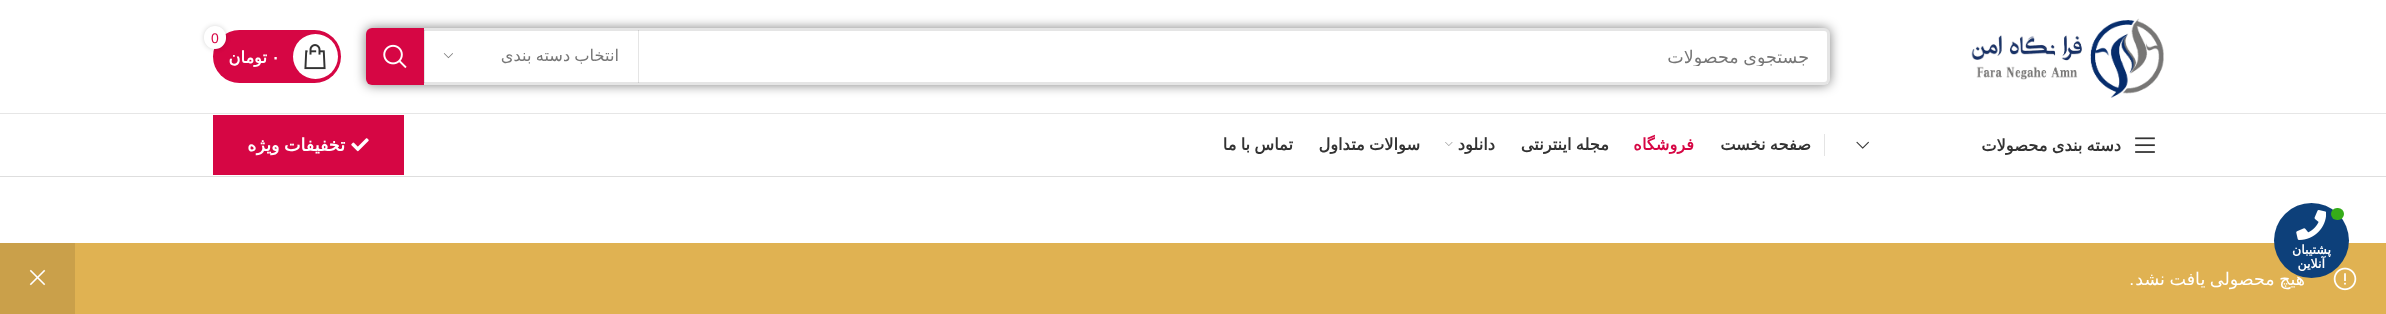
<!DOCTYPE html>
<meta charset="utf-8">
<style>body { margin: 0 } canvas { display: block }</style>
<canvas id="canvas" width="2386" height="314"></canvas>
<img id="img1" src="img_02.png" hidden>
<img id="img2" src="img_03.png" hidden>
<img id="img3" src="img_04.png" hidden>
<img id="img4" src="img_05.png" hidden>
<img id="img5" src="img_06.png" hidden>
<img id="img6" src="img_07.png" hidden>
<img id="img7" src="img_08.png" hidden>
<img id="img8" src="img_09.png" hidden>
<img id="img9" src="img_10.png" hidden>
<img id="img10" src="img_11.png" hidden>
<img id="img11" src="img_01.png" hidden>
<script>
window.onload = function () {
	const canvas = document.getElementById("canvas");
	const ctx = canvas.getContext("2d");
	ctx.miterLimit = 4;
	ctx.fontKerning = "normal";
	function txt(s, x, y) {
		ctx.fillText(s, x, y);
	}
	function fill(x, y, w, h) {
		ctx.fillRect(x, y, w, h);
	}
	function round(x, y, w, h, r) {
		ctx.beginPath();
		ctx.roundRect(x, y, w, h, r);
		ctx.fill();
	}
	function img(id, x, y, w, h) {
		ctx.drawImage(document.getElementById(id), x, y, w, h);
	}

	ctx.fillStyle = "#FFFFFF";
	fill(0, 0, 2386, 314);
	ctx.fillStyle = "#E6E6E6";
	fill(0, 113, 2386, 1);
	img("img1", 1971, 18, 193, 80);
	ctx.fillStyle = "rgba(0, 0, 0, 0.5)";
	ctx.filter = "blur(6px)";
	ctx.beginPath();
	ctx.roundRect(366, 28, 1464, 57, 6);
	ctx.fill();
	ctx.filter = "none";
	ctx.fillStyle = "#FFFFFF";
	round(366, 28, 1464, 57, 6);
	ctx.beginPath();
	ctx.roundRect(367.5, 29.5, 1461, 54, 4.5);
	ctx.strokeStyle = "rgba(0, 0, 0, 0.1)";
	ctx.lineWidth = 3;
	ctx.stroke();
	ctx.fillStyle = "rgba(0, 0, 0, 0.1)";
	fill(638, 30, 1, 53);
	fill(424, 30, 1, 53);
	img("img2", 443, 53, 10, 6);
	ctx.fillStyle = "#D60644";
	ctx.beginPath();
	ctx.roundRect(366, 28, 58, 57, [6, 0, 0, 6]);
	ctx.fill();
	img("img3", 383, 44, 24, 25);
	round(213, 30, 128, 53, 26.5);
	ctx.fillStyle = "#FFFFFF";
	ctx.beginPath();
	ctx.arc(315.5, 56.5, 22.5, 0, Math.PI * 2);
	ctx.fill();
	ctx.fillStyle = "rgba(0, 0, 0, 0.17)";
	ctx.filter = "blur(2.5px)";
	ctx.beginPath();
	ctx.roundRect(204, 26, 22, 23, 11);
	ctx.fill();
	ctx.filter = "none";
	ctx.fillStyle = "#FFFFFF";
	round(204, 26, 22, 23, 11);
	img("img4", 304, 44, 22, 26);
	ctx.fillStyle = "#DEDEDE";
	fill(0, 176, 2386, 1);
	img("img5", 2135, 137, 20, 16);
	img("img6", 1856, 141, 13, 8);
	ctx.fillStyle = "#E4E4E4";
	fill(1824, 134, 1, 22);
	img("img7", 1445, 142, 8, 4);
	ctx.fillStyle = "#D60644";
	fill(213, 115, 191, 60);
	img("img8", 351, 138, 18, 14);
	ctx.fillStyle = "#E0B252";
	fill(75, 243, 2311, 71);
	img("img9", 2333, 267, 24, 24);
	ctx.fillStyle = "#CAA04A";
	fill(0, 243, 75, 71);
	img("img10", 29, 269, 17, 17);
	ctx.save();
	ctx.beginPath();
	ctx.rect(679, 46, 1130, 20);
	ctx.clip();
	ctx.wordSpacing = "-1px";
	ctx.direction = "rtl";
	ctx.font = "17.5px DejaVu Sans";
	ctx.fillStyle = "#777777";
	txt("جستجوی محصولات", 1809, 63);
	ctx.restore();
	ctx.wordSpacing = "-1px";
	ctx.direction = "rtl";
	ctx.font = "16.25px DejaVu Sans";
	ctx.fillStyle = "#777777";
	txt("انتخاب دسته بندی", 619, 61);
	ctx.wordSpacing = "0px";
	ctx.direction = "ltr";
	ctx.font = "14px Liberation Sans";
	ctx.fillStyle = "#D60644";
	txt("0", 211, 43);
	ctx.font = "bold 16.25px DejaVu Sans";
	ctx.fillStyle = "#FFFFFF";
	txt("۰", 271, 63);
	ctx.direction = "rtl";
	txt("تومان", 267, 63);
	ctx.wordSpacing = "-1px";
	ctx.fillStyle = "#333333";
	txt("دسته بندی محصولات", 2121, 151);
	txt("صفحه نخست", 1811, 150);
	ctx.wordSpacing = "0px";
	ctx.fillStyle = "#D60644";
	txt("فروشگاه", 1694, 150);
	ctx.wordSpacing = "-1px";
	ctx.fillStyle = "#333333";
	txt("مجله اینترنتی", 1609, 150);
	ctx.wordSpacing = "0px";
	txt("دانلود", 1495, 150);
	ctx.wordSpacing = "-1px";
	txt("سوالات متداول", 1420, 150);
	txt("تماس با ما", 1293, 150);
	ctx.font = "bold 17.5px DejaVu Sans";
	ctx.fillStyle = "#FFFFFF";
	txt("تخفیفات ویژه", 345, 151);
	ctx.font = "17.5px DejaVu Sans";
	txt("هیچ محصولی یافت نشد", 2305, 285);
	ctx.fillStyle = "#0D407A";
	ctx.beginPath();
	ctx.arc(2311.5, 240.5, 37.5, 0, Math.PI * 2);
	ctx.fill();
	ctx.fillStyle = "#35AC19";
	round(2331, 208, 13, 12, 6);
	img("img11", 2296, 210, 30, 30);
	ctx.wordSpacing = "0px";
	ctx.font = "bold 12.5px DejaVu Sans";
	ctx.fillStyle = "#FFFFFF";
	txt("آنلاین", 2325, 268);
	txt("پشتیبان", 2331, 254);
	ctx.font = "17.5px Liberation Sans";
	txt(".", 2134, 285);
};
</script>
